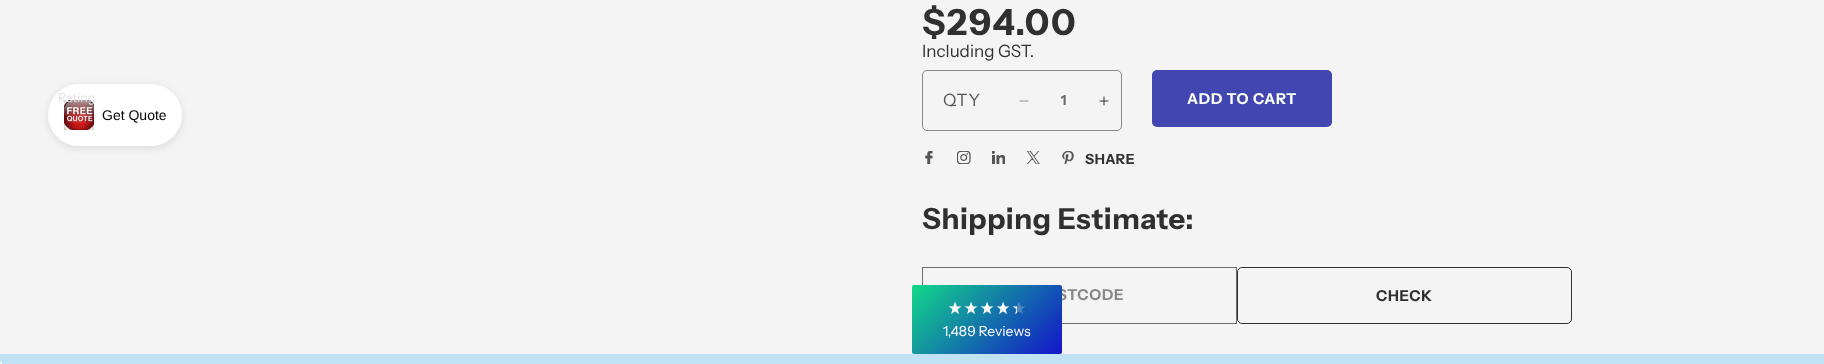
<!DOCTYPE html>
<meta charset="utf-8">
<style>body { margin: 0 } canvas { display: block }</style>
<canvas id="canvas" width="1824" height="364"></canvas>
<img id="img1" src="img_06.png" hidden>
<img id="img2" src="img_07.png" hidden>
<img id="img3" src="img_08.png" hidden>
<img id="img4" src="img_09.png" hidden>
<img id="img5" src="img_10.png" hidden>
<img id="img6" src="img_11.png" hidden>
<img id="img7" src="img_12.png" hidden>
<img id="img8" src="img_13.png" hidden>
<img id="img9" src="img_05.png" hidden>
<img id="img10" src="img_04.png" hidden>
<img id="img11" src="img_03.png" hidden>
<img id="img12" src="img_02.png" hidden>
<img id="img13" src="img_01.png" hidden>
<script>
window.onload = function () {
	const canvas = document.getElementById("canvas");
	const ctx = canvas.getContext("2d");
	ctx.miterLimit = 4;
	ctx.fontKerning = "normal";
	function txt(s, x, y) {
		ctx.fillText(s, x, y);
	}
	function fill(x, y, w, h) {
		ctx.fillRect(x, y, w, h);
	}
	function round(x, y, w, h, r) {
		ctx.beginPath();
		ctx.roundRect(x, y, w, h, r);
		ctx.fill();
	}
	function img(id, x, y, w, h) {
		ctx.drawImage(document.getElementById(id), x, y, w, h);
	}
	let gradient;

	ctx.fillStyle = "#F4F4F4";
	fill(0, 0, 1824, 364);
	img("img1", 1019, 100, 10, 2);
	img("img2", 1099, 96, 10, 10);
	ctx.beginPath();
	ctx.roundRect(922.5, 70.5, 199, 60, 4.5);
	ctx.strokeStyle = "#888888";
	ctx.stroke();
	ctx.fillStyle = "#4146B0";
	round(1152, 70, 180, 57, 5);
	img("img3", 925, 151, 8, 13);
	img("img4", 957, 151, 14, 13);
	img("img5", 992, 151, 13, 13);
	img("img6", 1026, 151, 14, 13);
	img("img7", 1062, 151, 12, 13);
	ctx.strokeStyle = "#6D6D6D";
	ctx.strokeRect(922.5, 267.5, 314, 56);
	ctx.beginPath();
	ctx.roundRect(1237.5, 267.5, 334, 56, 4.5);
	ctx.strokeStyle = "#303030";
	ctx.stroke();
	ctx.fillStyle = "#C1E1F4";
	fill(0, 354, 1824, 10);
	ctx.fillStyle = "rgba(0, 0, 0, 0.1)";
	ctx.filter = "blur(4px)";
	ctx.beginPath();
	ctx.roundRect(48, 86, 134, 62, 31);
	ctx.fill();
	ctx.filter = "none";
	ctx.fillStyle = "#FFFFFF";
	round(48, 84, 134, 62, 31);
	img("img8", 64, 100, 30, 30);
	ctx.fillStyle = "#F5F5F5";
	fill(0, 362, 2, 2);
	ctx.font = "12.5px Instrument Sans";
	ctx.fillStyle = "#E6E1E2";
	txt("Rating", 58, 102);
	ctx.letterSpacing = "1.25px";
	ctx.font = "bold 36px Instrument Sans";
	ctx.fillStyle = "#303030";
	txt("$294.00", 922, 35);
	ctx.letterSpacing = "0px";
	ctx.font = "17px Instrument Sans";
	txt("Including GST.", 922, 57);
	ctx.letterSpacing = "1px";
	ctx.fillStyle = "#555555";
	txt("QTY", 943, 106);
	ctx.letterSpacing = "0.5px";
	ctx.font = "bold 14px Instrument Sans";
	ctx.fillStyle = "#6D6D6D";
	txt("1", 1061, 105);
	ctx.letterSpacing = "0.75px";
	ctx.font = "bold 15px Instrument Sans";
	ctx.fillStyle = "#FFFFFF";
	txt("ADD TO CART", 1187, 104);
	ctx.letterSpacing = "0.5px";
	ctx.font = "bold 14px Instrument Sans";
	ctx.fillStyle = "#303030";
	txt("SHARE", 1085, 164);
	ctx.letterSpacing = "0.6px";
	ctx.font = "bold 29px Instrument Sans";
	txt("Shipping Estimate:", 922, 229);
	ctx.letterSpacing = "0.75px";
	ctx.font = "bold 15px Instrument Sans";
	ctx.fillStyle = "#888888";
	txt("STCODE", 1057, 300);
	gradient = ctx.createLinearGradient(932, 265, 1042, 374);
	gradient.addColorStop(0, "#12D889");
	gradient.addColorStop(1, "#1414CA");
	ctx.fillStyle = gradient;
	round(912, 285, 150, 69, 2);
	ctx.letterSpacing = "0px";
	ctx.font = "14px Instrument Sans";
	ctx.fillStyle = "#FFFFFF";
	txt("1,489 Reviews", 943, 336);
	img("img9", 1012, 302, 13, 13);
	img("img10", 996, 301, 14, 14);
	img("img11", 980, 301, 14, 14);
	img("img12", 964, 301, 14, 14);
	img("img13", 948, 301, 14, 14);
	ctx.letterSpacing = "0.75px";
	ctx.font = "bold 15px Instrument Sans";
	ctx.fillStyle = "#303030";
	txt("CHECK", 1376, 301);
	ctx.letterSpacing = "0px";
	ctx.font = "14px Liberation Sans";
	ctx.fillStyle = "#000000";
	txt("Get Quote", 102, 120);
};
</script>
